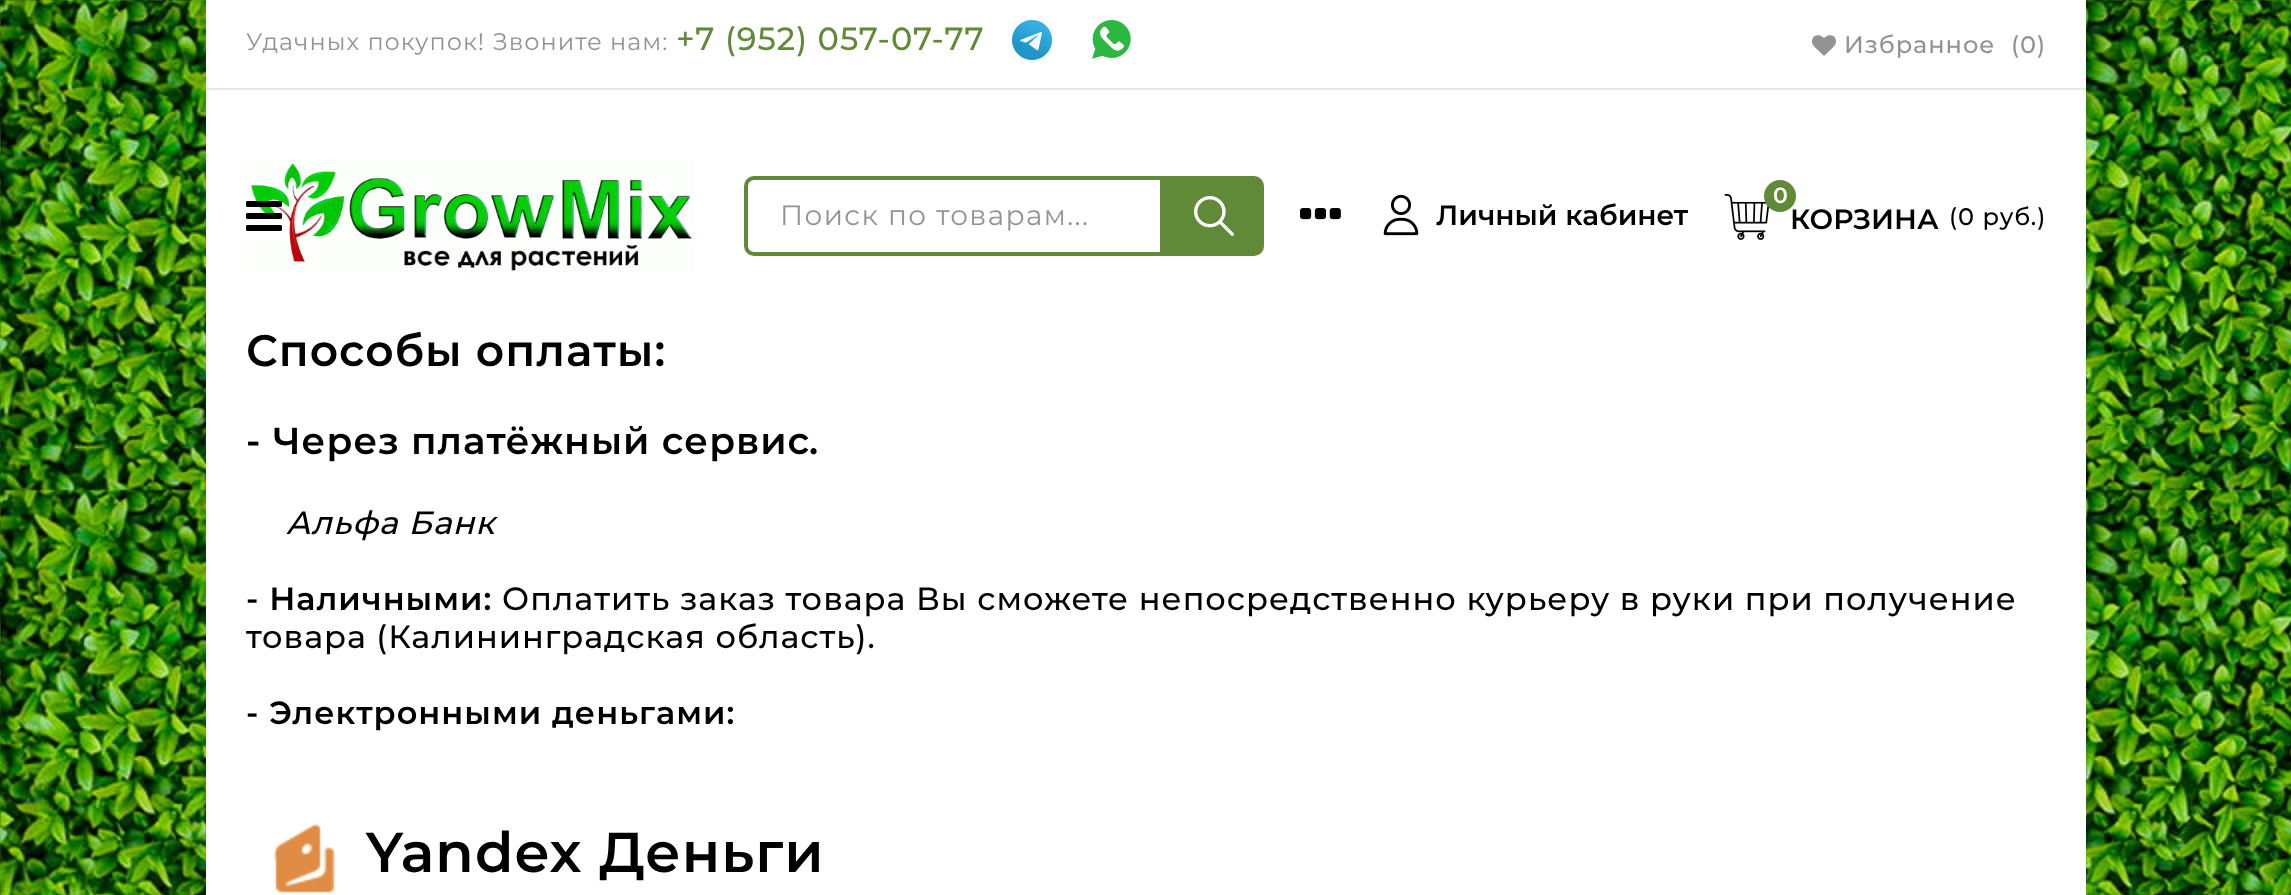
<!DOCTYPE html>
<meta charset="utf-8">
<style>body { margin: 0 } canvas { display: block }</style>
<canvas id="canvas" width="2291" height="895"></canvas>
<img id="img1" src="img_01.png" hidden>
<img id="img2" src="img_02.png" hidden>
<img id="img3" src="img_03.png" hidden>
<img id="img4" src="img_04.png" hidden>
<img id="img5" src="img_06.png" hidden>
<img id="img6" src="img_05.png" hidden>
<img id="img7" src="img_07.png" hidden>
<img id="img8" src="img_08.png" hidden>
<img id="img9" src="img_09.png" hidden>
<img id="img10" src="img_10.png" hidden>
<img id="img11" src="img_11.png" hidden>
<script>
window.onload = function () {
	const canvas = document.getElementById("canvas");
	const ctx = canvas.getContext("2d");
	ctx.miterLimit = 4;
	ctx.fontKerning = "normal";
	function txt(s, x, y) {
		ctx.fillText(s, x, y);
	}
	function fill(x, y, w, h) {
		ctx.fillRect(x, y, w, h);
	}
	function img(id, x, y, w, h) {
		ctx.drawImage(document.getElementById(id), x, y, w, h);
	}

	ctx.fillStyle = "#FFFFFF";
	fill(0, 0, 2291, 895);
	img("img1", 0, 0, 2291, 895);
	fill(206, 0, 1880, 895);
	ctx.fillStyle = "#E8E8E8";
	fill(206, 88, 1880, 2);
	img("img2", 1012, 20, 40, 40);
	img("img3", 1092, 20, 39, 39);
	img("img4", 1812, 35, 24, 21);
	img("img5", 248, 160, 446, 114);
	img("img6", 246, 201, 36, 30);
	ctx.beginPath();
	ctx.roundRect(746, 178, 416, 76, [8, 0, 0, 8]);
	ctx.strokeStyle = "#608A38";
	ctx.lineWidth = 4;
	ctx.stroke();
	ctx.fillStyle = "#608A38";
	ctx.beginPath();
	ctx.roundRect(1164, 176, 100, 80, [0, 10, 10, 0]);
	ctx.fill();
	img("img7", 1194, 196, 40, 40);
	img("img8", 1300, 208, 41, 12);
	img("img9", 1383, 194, 36, 42);
	img("img10", 1724, 194, 45, 46);
	img("img11", 273, 823, 62, 70);
	ctx.letterSpacing = "1px";
	ctx.font = "24px Montserrat";
	ctx.fillStyle = "#939393";
	txt("Удачных покупок! Звоните нам:", 246, 50);
	ctx.font = "500 32px Montserrat";
	ctx.fillStyle = "#608A38";
	txt("+7 (952) 057-07-77", 676, 50);
	ctx.font = "500 24px Montserrat";
	ctx.fillStyle = "#939393";
	txt("Избранное", 1844, 53);
	txt("(0)", 2011, 53);
	ctx.letterSpacing = "1.4px";
	ctx.font = "28px Montserrat";
	txt("Поиск по товарам...", 780, 225);
	ctx.letterSpacing = "0px";
	ctx.font = "600 28px Montserrat";
	ctx.fillStyle = "#000000";
	txt("Личный кабинет", 1436, 225);
	txt("КОРЗИНА", 1790, 229);
	ctx.fillStyle = "#608A38";
	ctx.beginPath();
	ctx.arc(1780, 196, 16, 0, Math.PI * 2);
	ctx.fill();
	ctx.font = "600 22px Montserrat";
	ctx.fillStyle = "#FFFFFF";
	txt("0", 1773, 203);
	ctx.letterSpacing = "1px";
	ctx.font = "500 24px Montserrat";
	ctx.fillStyle = "#000000";
	txt("(0 руб.)", 1949, 225);
	ctx.font = "600 44px Montserrat";
	txt("Способы оплаты:", 246, 366);
	ctx.font = "600 37.5px Montserrat";
	txt("- Через платёжный сервис", 246, 454);
	txt(".", 809, 454);
	ctx.font = "italic 500 32px Montserrat";
	txt("Альфа Банк", 286, 534);
	ctx.font = "600 32px Montserrat";
	txt("- Наличными:", 246, 610);
	ctx.font = "500 32px Montserrat";
	txt("Оплатить заказ товара Вы сможете непосредственно курьеру в руки при получение", 502, 610);
	txt("товара (Калининградская область).", 246, 648);
	ctx.font = "600 32px Montserrat";
	txt("- Электронными деньгами:", 246, 724);
	ctx.font = "600 56px Montserrat";
	txt("Yandex Деньги", 366, 872);
};
</script>
